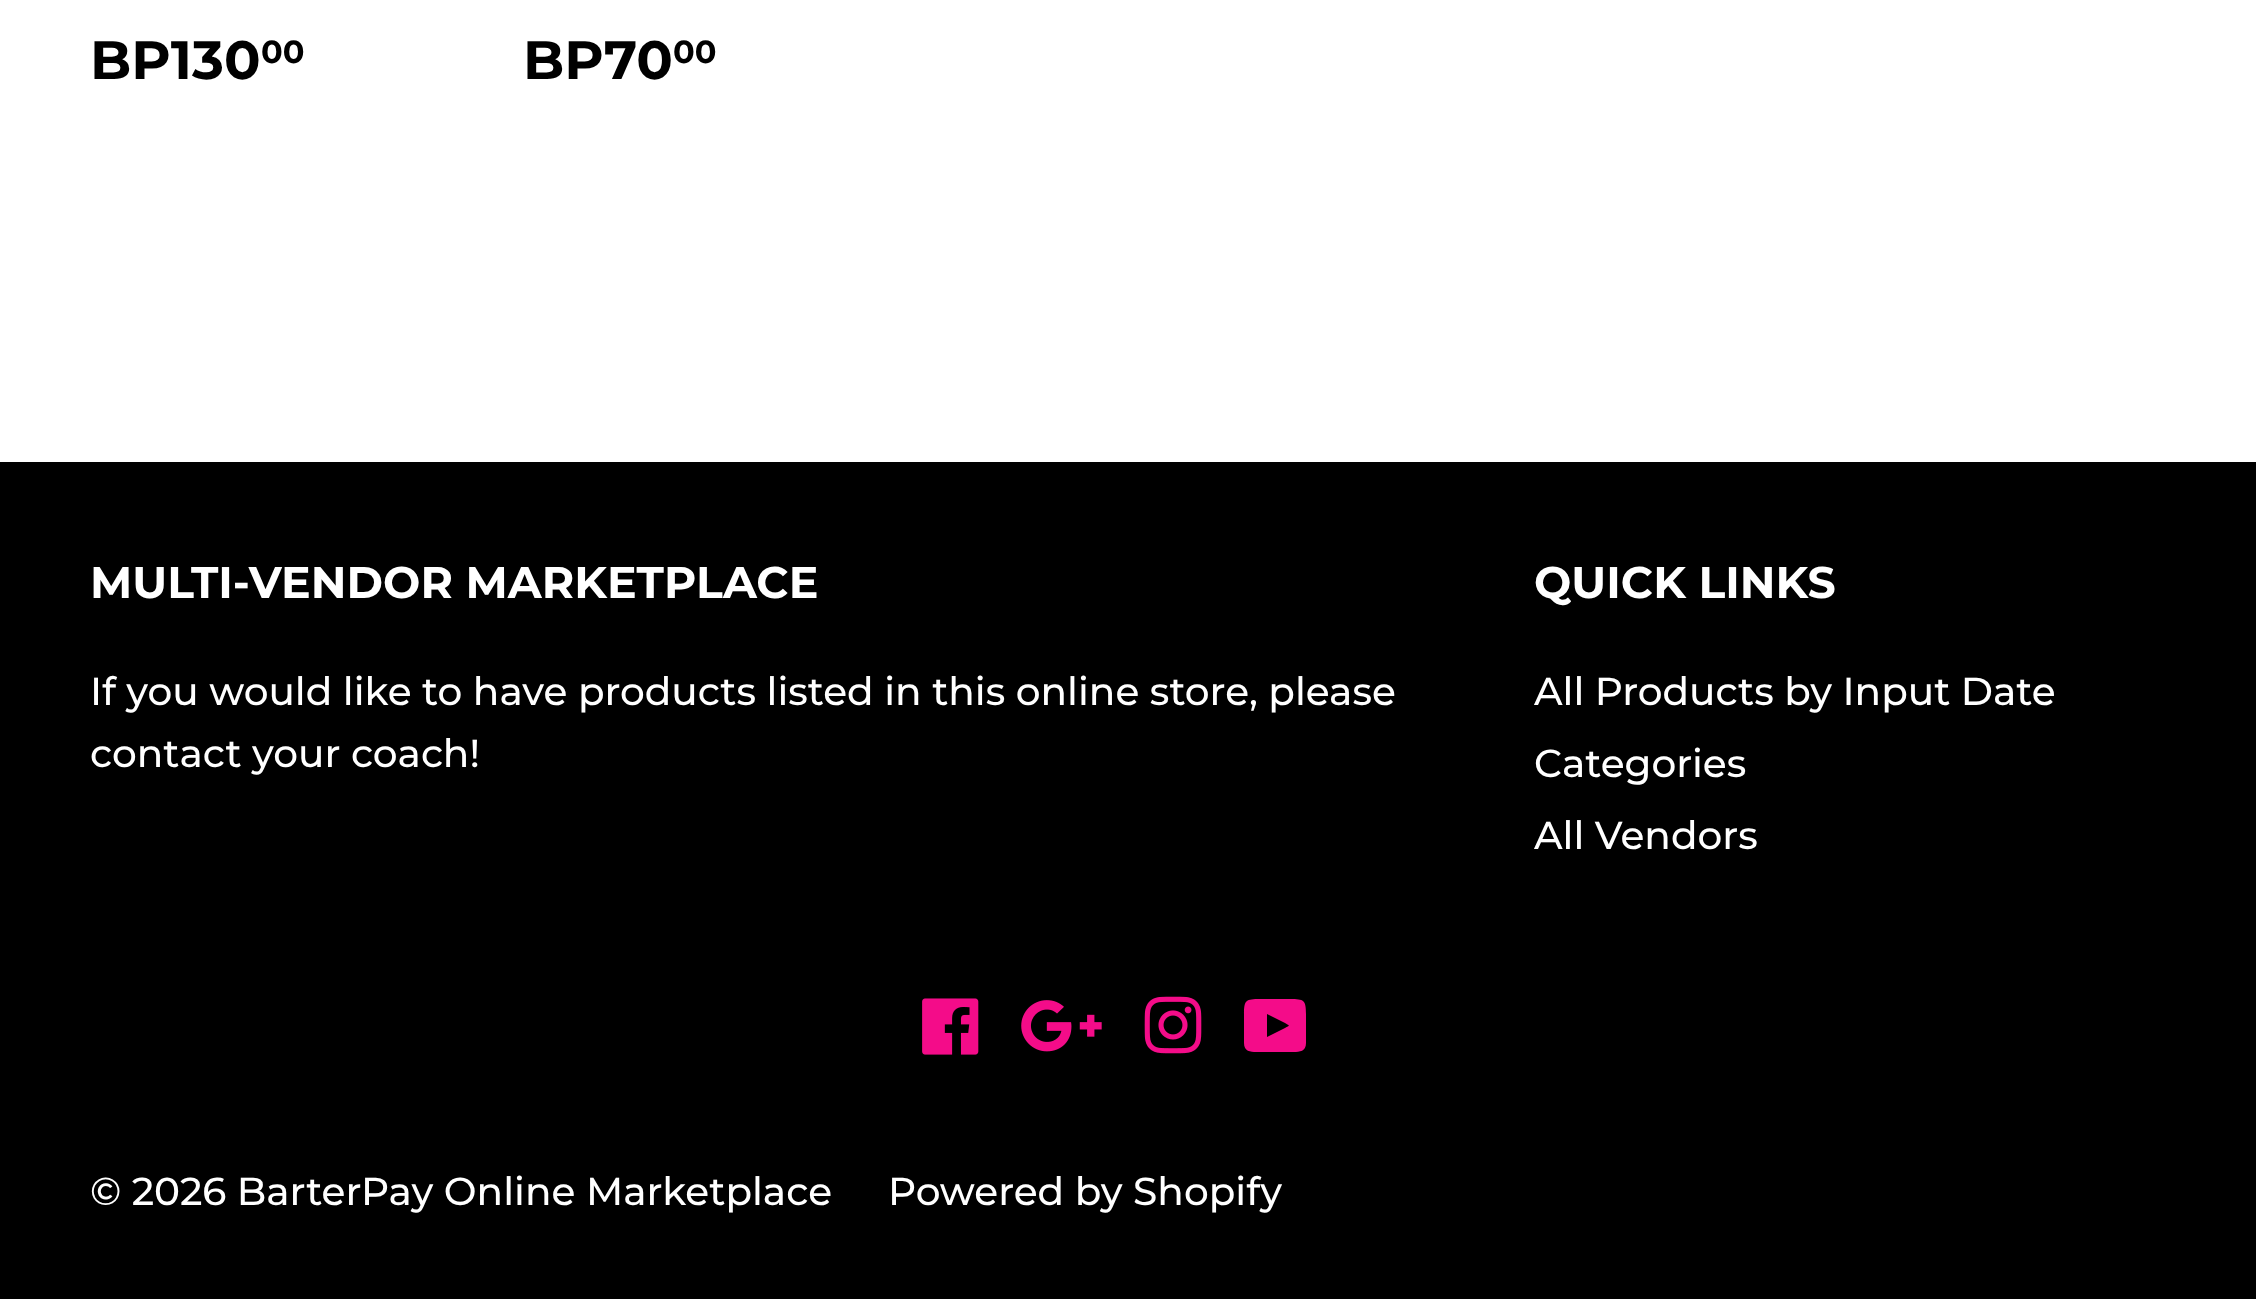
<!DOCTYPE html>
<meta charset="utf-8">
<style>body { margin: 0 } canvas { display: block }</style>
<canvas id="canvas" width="2256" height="1299"></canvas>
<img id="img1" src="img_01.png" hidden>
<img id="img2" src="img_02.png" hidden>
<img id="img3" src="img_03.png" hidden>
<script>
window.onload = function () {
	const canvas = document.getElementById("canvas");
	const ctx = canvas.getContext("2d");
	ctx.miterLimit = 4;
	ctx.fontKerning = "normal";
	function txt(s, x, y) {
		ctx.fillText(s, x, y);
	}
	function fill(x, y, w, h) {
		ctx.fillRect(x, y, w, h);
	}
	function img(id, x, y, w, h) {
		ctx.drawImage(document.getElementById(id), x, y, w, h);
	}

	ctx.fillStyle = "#FFFFFF";
	fill(0, 0, 2256, 1299);
	ctx.fillStyle = "#000000";
	fill(0, 462, 2256, 837);
	img("img1", 922, 998, 57, 57);
	img("img2", 1021, 1000, 81, 52);
	img("img3", 1144, 996, 58, 58);
	ctx.fillStyle = "#F40C89";
	ctx.beginPath();
	ctx.moveTo(1244, 1043);
	ctx.bezierCurveTo(1244, 1053, 1253, 1052, 1260, 1052);
	ctx.lineTo(1290, 1052);
	ctx.bezierCurveTo(1297, 1052, 1306, 1053, 1306, 1043);
	ctx.lineTo(1306, 1014);
	ctx.bezierCurveTo(1306, 1000, 1304, 999, 1290, 999);
	ctx.lineTo(1260, 999);
	ctx.bezierCurveTo(1246, 999, 1244, 1000, 1244, 1014);
	ctx.closePath();
	ctx.moveTo(1267, 1037);
	ctx.lineTo(1267, 1014);
	ctx.lineTo(1285, 1023);
	ctx.bezierCurveTo(1290, 1026, 1290, 1025, 1285, 1028);
	ctx.closePath();
	ctx.fill();
	ctx.font = "bold 54px Montserrat";
	ctx.fillStyle = "#000000";
	txt("BP130", 90, 79);
	ctx.font = "bold 32px Montserrat";
	txt("00", 261, 63);
	ctx.font = "bold 54px Montserrat";
	txt("BP70", 523, 79);
	ctx.font = "bold 32px Montserrat";
	txt("00", 673, 63);
	ctx.font = "bold 44.25px Montserrat";
	ctx.fillStyle = "#FFFFFF";
	txt("MULTI-VENDOR MARKETPLACE", 90, 598);
	ctx.font = "500 39px Montserrat";
	txt("If you would like to have products listed in this online store, please", 90, 705);
	txt("contact your coach!", 90, 767);
	ctx.font = "bold 44.25px Montserrat";
	txt("QUICK LINKS", 1534, 598);
	ctx.font = "500 39px Montserrat";
	txt("All Products by Input Date", 1534, 705);
	txt("Categories", 1534, 777);
	txt("All Vendors", 1534, 849);
	txt("© 2026 BarterPay Online Marketplace", 90, 1205);
	txt("Powered by Shopify", 888, 1205);
};
</script>
